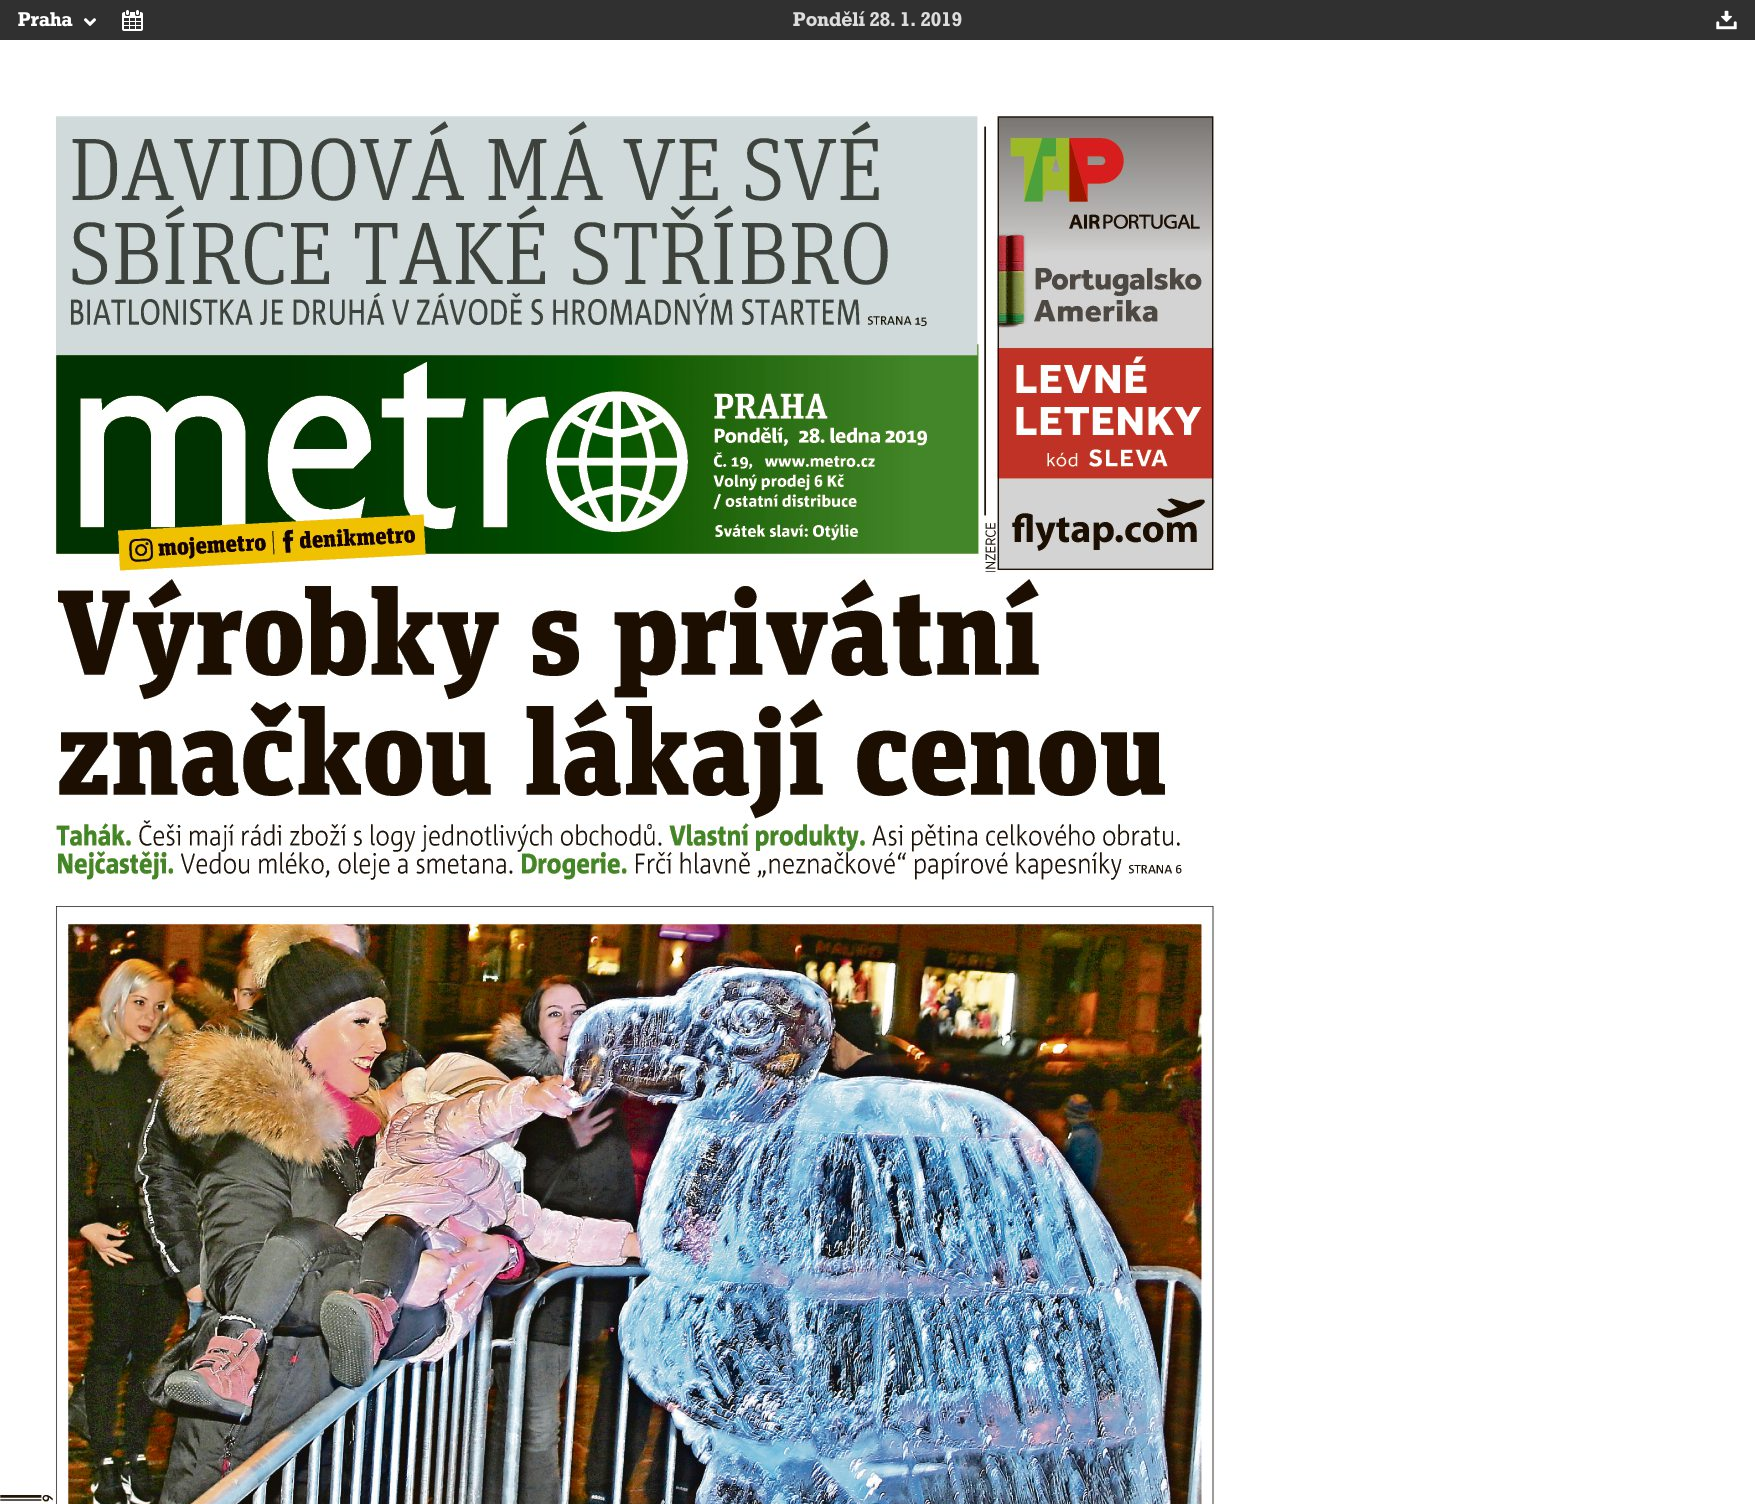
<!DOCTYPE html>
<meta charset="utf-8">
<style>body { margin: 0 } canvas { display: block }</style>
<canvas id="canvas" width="1755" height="1504"></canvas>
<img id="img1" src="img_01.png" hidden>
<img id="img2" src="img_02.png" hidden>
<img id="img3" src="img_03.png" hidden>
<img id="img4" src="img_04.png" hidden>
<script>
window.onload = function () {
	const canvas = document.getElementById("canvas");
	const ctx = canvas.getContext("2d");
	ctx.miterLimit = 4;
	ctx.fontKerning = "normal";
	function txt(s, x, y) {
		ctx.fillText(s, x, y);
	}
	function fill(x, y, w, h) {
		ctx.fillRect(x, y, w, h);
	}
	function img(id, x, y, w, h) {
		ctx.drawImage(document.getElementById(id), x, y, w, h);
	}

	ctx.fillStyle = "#FFFFFF";
	fill(0, 0, 1755, 1504);
	ctx.fillStyle = "#303030";
	fill(0, 0, 1755, 40);
	img("img1", 84, 18, 12, 8);
	img("img2", 122, 10, 21, 21);
	img("img3", 1716, 10, 21, 20);
	img("img4", 0, 112, 1216, 1392);
	ctx.font = "bold 20px 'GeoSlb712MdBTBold'";
	ctx.fillStyle = "#FFFFFF";
	txt("Praha", 18, 26);
	ctx.fillStyle = "#DDDDDD";
	txt("Pondělí 28. 1. 2019", 793, 26);
};
</script>
